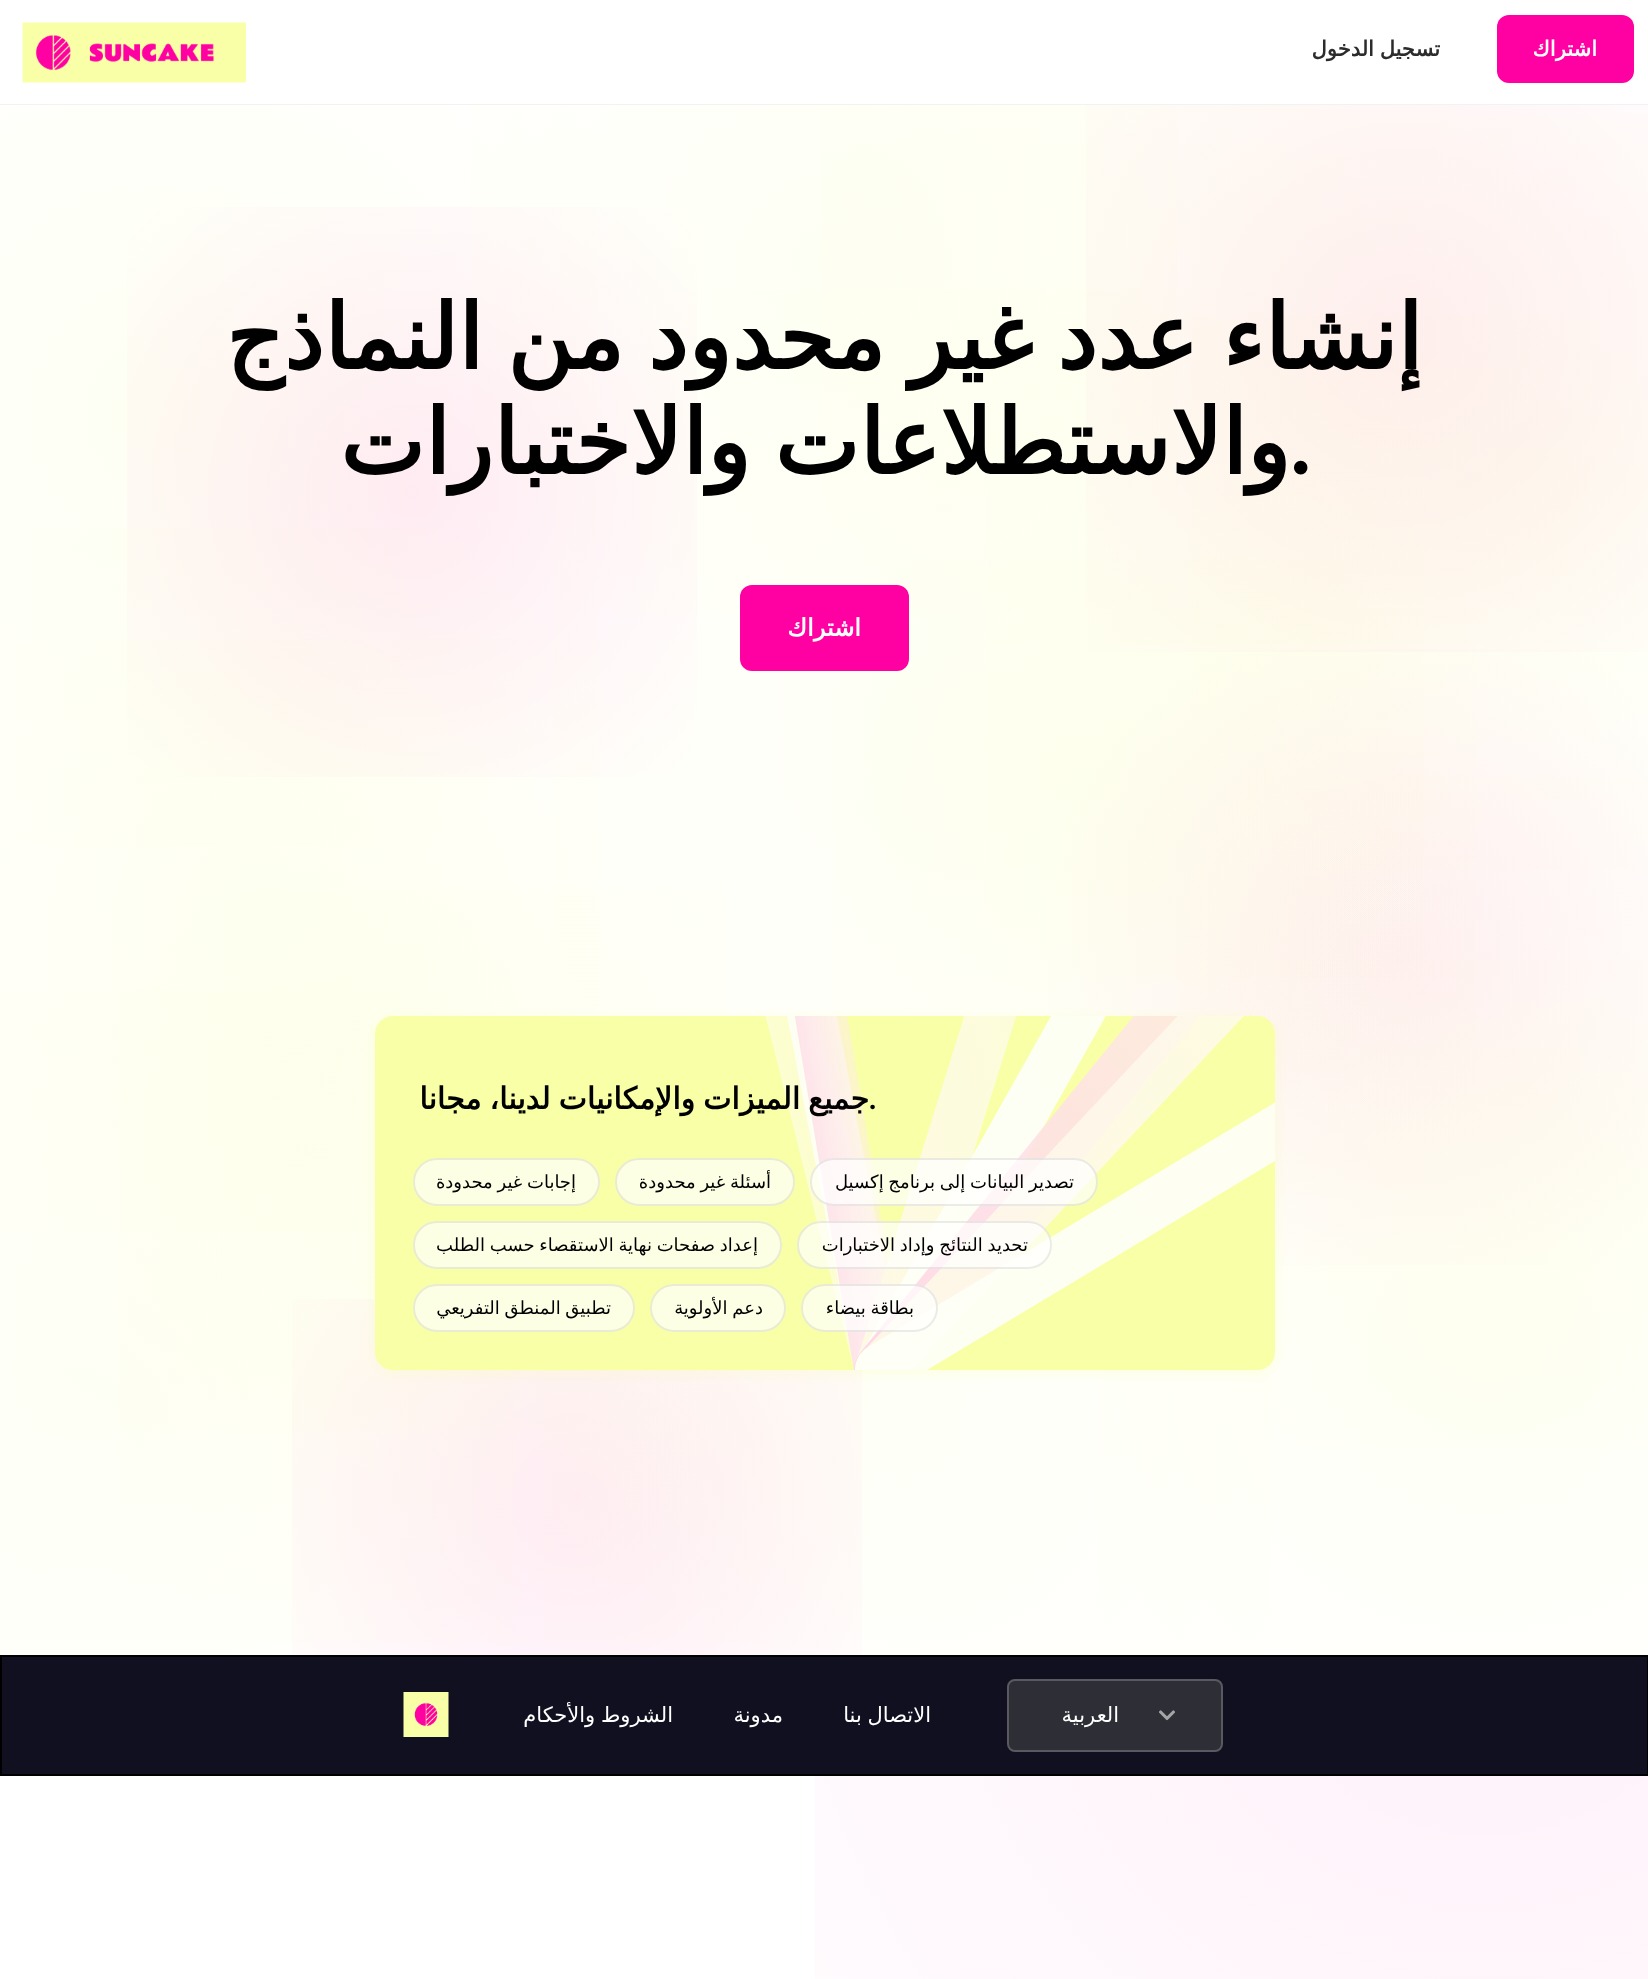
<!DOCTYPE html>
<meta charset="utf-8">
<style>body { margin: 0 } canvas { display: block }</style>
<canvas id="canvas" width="1648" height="1979"></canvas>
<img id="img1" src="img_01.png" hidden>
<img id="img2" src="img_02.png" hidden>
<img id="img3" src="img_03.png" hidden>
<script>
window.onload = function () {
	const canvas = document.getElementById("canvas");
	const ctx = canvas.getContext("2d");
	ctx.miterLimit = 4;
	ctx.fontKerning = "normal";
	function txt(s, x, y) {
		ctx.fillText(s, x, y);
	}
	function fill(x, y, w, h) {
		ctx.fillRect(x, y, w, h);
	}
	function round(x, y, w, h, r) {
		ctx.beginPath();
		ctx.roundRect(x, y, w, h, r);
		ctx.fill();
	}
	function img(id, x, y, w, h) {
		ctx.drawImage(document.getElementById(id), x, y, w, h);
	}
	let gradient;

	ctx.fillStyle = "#FFFFFF";
	fill(0, 0, 1648, 1979);
	gradient = ctx.createRadialGradient(824, 990, 0, 824, 990, 1288);
	gradient.addColorStop(0, "#FFFFFC");
	gradient.addColorStop(0.6, "#FFFFFF");
	ctx.fillStyle = gradient;
	fill(695, 861, 257, 257);
	gradient = ctx.createRadialGradient(1484, 1584, 0, 1484, 1584, 2170);
	gradient.addColorStop(0, "rgba(245, 0, 156, 0.06)");
	gradient.addColorStop(0.5, "rgba(245, 0, 156, 0)");
	ctx.fillStyle = gradient;
	fill(815, 1776, 833, 203);
	gradient = ctx.createRadialGradient(165, 396, 0, 165, 396, 2170);
	gradient.addColorStop(0, "rgba(249, 255, 167, 0.08)");
	gradient.addColorStop(0.5, "rgba(249, 255, 167, 0)");
	ctx.fillStyle = gradient;
	fill(0, 0, 847, 105);
	ctx.fillStyle = "rgba(255, 255, 255, 0.95)";
	fill(0, 0, 847, 105);
	ctx.fillStyle = "rgba(0, 0, 0, 0.05)";
	fill(0, 104, 1648, 1);
	ctx.fillStyle = "#FF00A2";
	round(1497, 15, 137, 68, 12);
	img("img1", 22, 22, 224, 61);
	gradient = ctx.createRadialGradient(1401, 957, 0, 1401, 957, 600);
	gradient.addColorStop(0, "#FFEEF9");
	gradient.addColorStop(0.6, "#FFFFFF");
	ctx.fillStyle = gradient;
	fill(695, 649, 953, 616);
	gradient = ctx.createRadialGradient(577, 1500, 0, 577, 1500, 630);
	gradient.addColorStop(0, "rgba(255, 0, 162, 0.08)");
	gradient.addColorStop(0.62, "rgba(255, 0, 162, 0)");
	ctx.fillStyle = gradient;
	fill(292, 1299, 570, 356);
	gradient = ctx.createRadialGradient(1319, 647, 0, 1319, 647, 690);
	gradient.addColorStop(0, "rgba(249, 255, 167, 0.09)");
	gradient.addColorStop(0.67, "rgba(249, 255, 167, 0)");
	ctx.fillStyle = gradient;
	fill(988, 316, 660, 662);
	gradient = ctx.createRadialGradient(330, 1035, 0, 330, 1035, 735);
	gradient.addColorStop(0, "rgba(249, 255, 167, 0.11)");
	gradient.addColorStop(0.7, "rgba(249, 255, 167, 0)");
	ctx.fillStyle = gradient;
	fill(0, 639, 726, 792);
	gradient = ctx.createRadialGradient(1154, 880, 0, 1154, 880, 660);
	gradient.addColorStop(0, "rgba(249, 255, 167, 0.1)");
	gradient.addColorStop(0.65, "rgba(249, 255, 167, 0)");
	ctx.fillStyle = gradient;
	fill(833, 559, 642, 636);
	gradient = ctx.createRadialGradient(1566, 492, 0, 1566, 492, 705);
	gradient.addColorStop(0, "rgba(249, 255, 167, 0.12)");
	gradient.addColorStop(0.68, "rgba(249, 255, 167, 0)");
	ctx.fillStyle = gradient;
	fill(1189, 115, 459, 754);
	gradient = ctx.createRadialGradient(82, 1422, 0, 82, 1422, 780);
	gradient.addColorStop(0, "rgba(249, 255, 167, 0.11)");
	gradient.addColorStop(0.72, "rgba(249, 255, 167, 0)");
	ctx.fillStyle = gradient;
	fill(0, 990, 514, 665);
	gradient = ctx.createRadialGradient(824, 260, 0, 824, 260, 675);
	gradient.addColorStop(0, "rgba(249, 255, 167, 0.13)");
	gradient.addColorStop(0.65, "rgba(249, 255, 167, 0)");
	ctx.fillStyle = gradient;
	fill(471, 105, 706, 508);
	gradient = ctx.createRadialGradient(1484, 1345, 0, 1484, 1345, 720);
	gradient.addColorStop(0, "rgba(249, 255, 167, 0.12)");
	gradient.addColorStop(0.68, "rgba(249, 255, 167, 0)");
	ctx.fillStyle = gradient;
	fill(1098, 959, 550, 696);
	gradient = ctx.createRadialGradient(165, 415, 0, 165, 415, 750);
	gradient.addColorStop(0, "rgba(249, 255, 167, 0.14)");
	gradient.addColorStop(0.7, "rgba(249, 255, 167, 0)");
	ctx.fillStyle = gradient;
	fill(0, 105, 596, 741);
	gradient = ctx.createRadialGradient(1401, 337, 0, 1401, 337, 690);
	gradient.addColorStop(0, "rgba(255, 0, 162, 0.07)");
	gradient.addColorStop(0.66, "rgba(255, 0, 162, 0)");
	ctx.fillStyle = gradient;
	fill(1086, 105, 562, 547);
	gradient = ctx.createRadialGradient(412, 492, 0, 412, 492, 630);
	gradient.addColorStop(0, "rgba(255, 0, 162, 0.08)");
	gradient.addColorStop(0.62, "rgba(255, 0, 162, 0)");
	ctx.fillStyle = gradient;
	fill(127, 207, 570, 570);
	gradient = ctx.createRadialGradient(907, 1422, 0, 907, 1422, 735);
	gradient.addColorStop(0, "rgba(249, 255, 167, 0.09)");
	gradient.addColorStop(0.69, "rgba(249, 255, 167, 0)");
	ctx.fillStyle = gradient;
	fill(543, 1307, 728, 348);
	gradient = ctx.createRadialGradient(1517, 1112, 0, 1517, 1112, 675);
	gradient.addColorStop(0, "rgba(249, 255, 167, 0.11)");
	gradient.addColorStop(0.65, "rgba(249, 255, 167, 0)");
	ctx.fillStyle = gradient;
	fill(1180, 775, 468, 674);
	gradient = ctx.createRadialGradient(247, 880, 0, 247, 880, 705);
	gradient.addColorStop(0, "rgba(249, 255, 167, 0.1)");
	gradient.addColorStop(0.67, "rgba(249, 255, 167, 0)");
	ctx.fillStyle = gradient;
	fill(0, 528, 599, 704);
	gradient = ctx.createRadialGradient(1236, 229, 0, 1236, 229, 750);
	gradient.addColorStop(0, "rgba(249, 255, 167, 0.12)");
	gradient.addColorStop(0.7, "rgba(249, 255, 167, 0)");
	ctx.fillStyle = gradient;
	fill(821, 105, 827, 539);
	gradient = ctx.createRadialGradient(495, 1267, 0, 495, 1267, 720);
	gradient.addColorStop(0, "rgba(249, 255, 167, 0.11)");
	gradient.addColorStop(0.68, "rgba(249, 255, 167, 0)");
	ctx.fillStyle = gradient;
	fill(119, 891, 752, 752);
	gradient = ctx.createRadialGradient(989, 725, 0, 989, 725, 765);
	gradient.addColorStop(0, "rgba(249, 255, 167, 0.13)");
	gradient.addColorStop(0.71, "rgba(249, 255, 167, 0)");
	ctx.fillStyle = gradient;
	fill(554, 290, 870, 784);
	ctx.fillStyle = "#FF00A2";
	round(740, 585, 169, 86, 12);
	ctx.fillStyle = "rgba(249, 255, 167, 0.3)";
	ctx.filter = "blur(6px)";
	ctx.beginPath();
	ctx.roundRect(375, 1019, 900, 354, 18);
	ctx.fill();
	ctx.filter = "none";
	ctx.fillStyle = "#F9FFA7";
	round(375, 1016, 900, 354, 18);
	ctx.save();
	ctx.beginPath();
	ctx.roundRect(375, 1016, 900, 354, 18);
	ctx.clip();
	ctx.beginPath();
	ctx.moveTo(880, 1369);
	ctx.lineTo(649.5, 448.5);
	gradient = ctx.createLinearGradient(650, 1369, 1083, 1261);
	gradient.addColorStop(0, "#FEFBE9");
	gradient.addColorStop(0.35, "#FDFDD8");
	gradient.addColorStop(0.75, "#FAFFBA");
	gradient.addColorStop(1, "#F9FFA7");
	ctx.strokeStyle = gradient;
	ctx.lineWidth = 50.6;
	ctx.lineCap = "round";
	ctx.stroke();
	ctx.beginPath();
	ctx.moveTo(880, 1369);
	ctx.lineTo(736, 621);
	gradient = ctx.createLinearGradient(736, 1369, 1013, 1316);
	gradient.addColorStop(0, "#FEFFF6");
	gradient.addColorStop(0.4, "rgba(254, 255, 246, 0.95)");
	gradient.addColorStop(0.8, "rgba(254, 255, 246, 0.4)");
	gradient.addColorStop(1, "rgba(254, 255, 246, 0)");
	ctx.strokeStyle = gradient;
	ctx.lineWidth = 48.9;
	ctx.stroke();
	ctx.beginPath();
	ctx.moveTo(880, 1369);
	ctx.lineTo(793.5, 851);
	gradient = ctx.createLinearGradient(794, 1369, 961, 1341);
	gradient.addColorStop(0, "rgba(254, 206, 224, 0.98)");
	gradient.addColorStop(0.38, "rgba(254, 224, 233, 0.8)");
	gradient.addColorStop(0.78, "rgba(254, 242, 240, 0.3)");
	gradient.addColorStop(1, "rgba(254, 242, 240, 0)");
	ctx.strokeStyle = gradient;
	ctx.lineWidth = 51.8;
	ctx.stroke();
	ctx.beginPath();
	ctx.moveTo(880, 1369);
	ctx.lineTo(1167.5, 448.5);
	gradient = ctx.createLinearGradient(880, 1369, 1404, 1205);
	gradient.addColorStop(0, "#FEF9E4");
	gradient.addColorStop(0.42, "rgba(254, 251, 235, 0.75)");
	gradient.addColorStop(0.82, "rgba(254, 252, 240, 0.3)");
	gradient.addColorStop(1, "rgba(254, 252, 240, 0)");
	ctx.strokeStyle = gradient;
	ctx.lineWidth = 49.5;
	ctx.stroke();
	ctx.beginPath();
	ctx.moveTo(880, 1369);
	ctx.lineTo(1397.5, 448.5);
	gradient = ctx.createLinearGradient(880, 1369, 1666, 926);
	gradient.addColorStop(0, "rgba(254, 255, 246, 0.99)");
	gradient.addColorStop(0.45, "rgba(254, 255, 246, 0.96)");
	gradient.addColorStop(0.88, "rgba(254, 255, 246, 0.45)");
	gradient.addColorStop(1, "rgba(254, 255, 246, 0)");
	ctx.strokeStyle = gradient;
	ctx.lineWidth = 47.7;
	ctx.stroke();
	ctx.beginPath();
	ctx.moveTo(880, 1369);
	ctx.lineTo(1627.5, 448.5);
	gradient = ctx.createLinearGradient(880, 1369, 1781, 637);
	gradient.addColorStop(0, "rgba(254, 215, 228, 0.95)");
	gradient.addColorStop(0.48, "rgba(254, 233, 235, 0.78)");
	gradient.addColorStop(0.9, "rgba(254, 246, 242, 0.32)");
	gradient.addColorStop(1, "rgba(254, 246, 242, 0)");
	ctx.strokeStyle = gradient;
	ctx.lineWidth = 51.2;
	ctx.stroke();
	ctx.beginPath();
	ctx.moveTo(880, 1369);
	ctx.lineTo(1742.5, 448.5);
	gradient = ctx.createLinearGradient(880, 1369, 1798, 508);
	gradient.addColorStop(0, "#FEF7E7");
	gradient.addColorStop(0.5, "rgba(254, 251, 237, 0.8)");
	gradient.addColorStop(0.95, "rgba(254, 253, 242, 0.35)");
	gradient.addColorStop(1, "rgba(254, 253, 242, 0)");
	ctx.strokeStyle = gradient;
	ctx.lineWidth = 48.3;
	ctx.stroke();
	ctx.beginPath();
	ctx.moveTo(880, 1369);
	ctx.lineTo(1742.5, 851);
	gradient = ctx.createLinearGradient(880, 1369, 1337, 608);
	gradient.addColorStop(0, "rgba(254, 255, 246, 0.97)");
	gradient.addColorStop(0.52, "rgba(254, 255, 246, 0.94)");
	gradient.addColorStop(1, "rgba(254, 255, 246, 0)");
	ctx.strokeStyle = gradient;
	ctx.lineWidth = 50;
	ctx.stroke();
	ctx.restore();
	ctx.fillStyle = "rgba(255, 255, 255, 0.7)";
	round(810, 1158, 288, 48, 24);
	ctx.beginPath();
	ctx.roundRect(811, 1159, 286, 46, 23);
	ctx.strokeStyle = "rgba(0, 0, 0, 0.08)";
	ctx.lineWidth = 2;
	ctx.stroke();
	ctx.fillStyle = "#FDFFE5";
	round(615, 1158, 180, 48, 24);
	ctx.beginPath();
	ctx.roundRect(616, 1159, 178, 46, 23);
	ctx.stroke();
	round(413, 1158, 187, 48, 24);
	ctx.beginPath();
	ctx.roundRect(414, 1159, 185, 46, 23);
	ctx.stroke();
	ctx.fillStyle = "rgba(255, 255, 255, 0.7)";
	round(797, 1221, 255, 48, 24);
	ctx.beginPath();
	ctx.roundRect(798, 1222, 253, 46, 23);
	ctx.stroke();
	ctx.fillStyle = "#FDFFE5";
	round(413, 1221, 369, 48, 24);
	ctx.beginPath();
	ctx.roundRect(414, 1222, 367, 46, 23);
	ctx.stroke();
	ctx.fillStyle = "rgba(255, 255, 255, 0.7)";
	round(801, 1284, 137, 48, 24);
	ctx.beginPath();
	ctx.roundRect(802, 1285, 135, 46, 23);
	ctx.stroke();
	ctx.fillStyle = "#FDFFE5";
	round(650, 1284, 136, 48, 24);
	ctx.beginPath();
	ctx.roundRect(651, 1285, 134, 46, 23);
	ctx.stroke();
	round(413, 1284, 222, 48, 24);
	ctx.beginPath();
	ctx.roundRect(414, 1285, 220, 46, 23);
	ctx.stroke();
	ctx.fillStyle = "#101020";
	ctx.beginPath();
	ctx.rect(1, 1656, 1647, 119);
	ctx.fill();
	ctx.strokeStyle = "#000000";
	ctx.stroke();
	ctx.fillStyle = "#2E2E37";
	round(1007, 1679, 216, 73, 8);
	ctx.beginPath();
	ctx.roundRect(1008, 1680, 214, 71, 7);
	ctx.strokeStyle = "rgba(190, 190, 190, 0.3)";
	ctx.stroke();
	img("img2", 1159, 1710, 16, 11);
	img("img3", 403, 1692, 46, 45);
	ctx.direction = "rtl";
	ctx.font = "bold 21px DejaVu Sans";
	ctx.fillStyle = "#FFFFFF";
	txt("اشتراك", 1597, 56);
	ctx.wordSpacing = "-1px";
	ctx.fillStyle = "#2C2C2C";
	txt("تسجيل الدخول", 1440, 56);
	ctx.wordSpacing = "-4.5px";
	ctx.font = "bold 90px DejaVu Sans";
	ctx.fillStyle = "#000000";
	txt("إنشاء عدد غير محدود من النماذج", 1422, 369);
	ctx.wordSpacing = "0px";
	ctx.direction = "ltr";
	ctx.font = "bold 90px Poppins";
	txt(".", 1290, 474);
	ctx.wordSpacing = "-4.5px";
	ctx.direction = "rtl";
	ctx.font = "bold 90px DejaVu Sans";
	txt("والاستطلاعات والاختبارات", 1290, 474);
	ctx.wordSpacing = "0px";
	ctx.font = "bold 24px DejaVu Sans";
	ctx.fillStyle = "#FFFFFF";
	txt("اشتراك", 861, 636);
	ctx.direction = "ltr";
	ctx.font = "bold 30px Poppins";
	ctx.fillStyle = "#000000";
	txt(".", 869, 1109);
	ctx.wordSpacing = "-1.5px";
	ctx.direction = "rtl";
	ctx.font = "bold 30px DejaVu Sans";
	txt("جميع الميزات والإمكانيات لدينا، مجانا", 869, 1109);
	ctx.wordSpacing = "-1px";
	ctx.font = "18px DejaVu Sans";
	txt("تصدير البيانات إلى برنامج إكسيل", 1074, 1188);
	txt("أسئلة غير محدودة", 771, 1188);
	txt("إجابات غير محدودة", 576, 1188);
	txt("تحديد النتائج وإداد الاختبارات", 1028, 1251);
	txt("إعداد صفحات نهاية الاستقصاء حسب الطلب", 758, 1251);
	txt("بطاقة بيضاء", 914, 1314);
	txt("دعم الأولوية", 763, 1314);
	txt("تطبيق المنطق التفريعي", 611, 1314);
	ctx.wordSpacing = "0px";
	ctx.font = "21px DejaVu Sans";
	ctx.fillStyle = "#FFFFFF";
	txt("العربية", 1119, 1722);
	ctx.wordSpacing = "-1px";
	txt("الاتصال بنا", 931, 1722);
	ctx.wordSpacing = "0px";
	txt("مدونة", 783, 1722);
	ctx.wordSpacing = "-1px";
	txt("الشروط والأحكام", 673, 1722);
};
</script>
